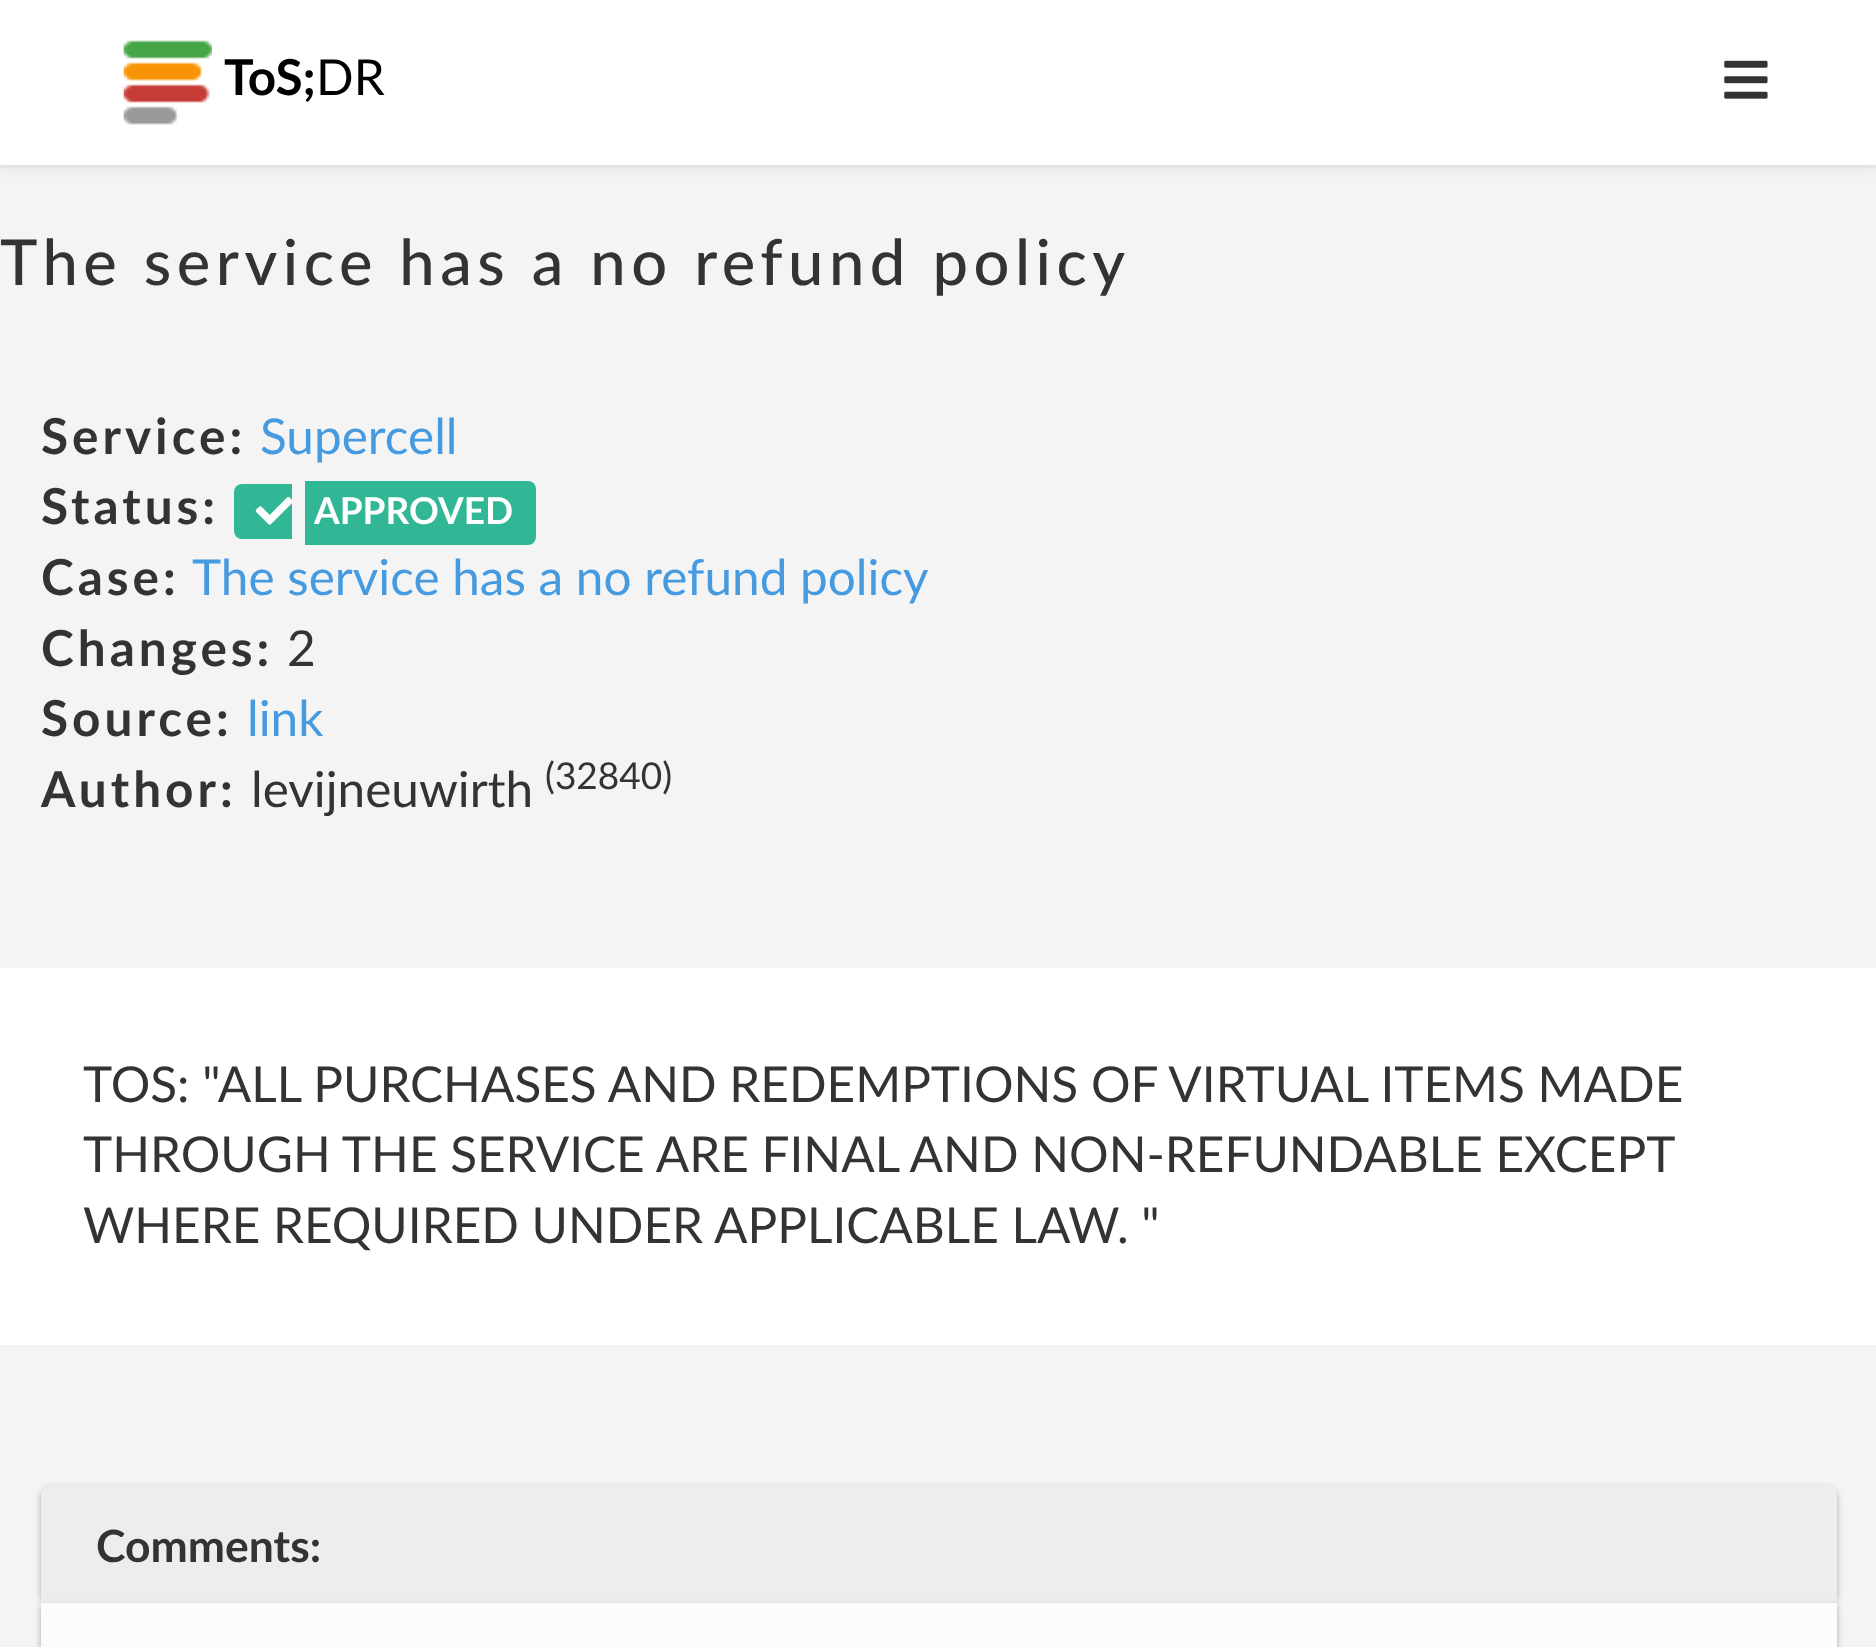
<!DOCTYPE html>
<meta charset="utf-8">
<style>body { margin: 0 } canvas { display: block }</style>
<canvas id="canvas" width="1876" height="1647"></canvas>
<img id="img1" src="img_01.png" hidden>
<img id="img2" src="img_02.png" hidden>
<img id="img3" src="img_03.png" hidden>
<script>
window.onload = function () {
	const canvas = document.getElementById("canvas");
	const ctx = canvas.getContext("2d");
	ctx.miterLimit = 4;
	ctx.fontKerning = "normal";
	function txt(s, x, y) {
		ctx.fillText(s, x, y);
	}
	function fill(x, y, w, h) {
		ctx.fillRect(x, y, w, h);
	}
	function img(id, x, y, w, h) {
		ctx.drawImage(document.getElementById(id), x, y, w, h);
	}

	ctx.fillStyle = "#F4F4F4";
	fill(0, 0, 1876, 1647);
	ctx.fillStyle = "#EDEDED";
	fill(0, 165, 1876, 3);
	ctx.fillStyle = "rgba(0, 0, 0, 0.07)";
	ctx.filter = "blur(7px)";
	ctx.beginPath();
	ctx.rect(0, 3, 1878, 165);
	ctx.fill();
	ctx.filter = "none";
	ctx.fillStyle = "#FFFFFF";
	fill(0, 0, 1876, 165);
	img("img1", 123, 40, 89, 85);
	img("img2", 1724, 60, 44, 39);
	ctx.fillStyle = "#32B796";
	ctx.beginPath();
	ctx.roundRect(234, 484, 58, 55, [8, 0, 0, 8]);
	ctx.fill();
	ctx.beginPath();
	ctx.roundRect(305, 481, 231, 64, [0, 8, 8, 0]);
	ctx.fill();
	img("img3", 255, 497, 38, 28);
	ctx.fillStyle = "#FFFFFF";
	fill(0, 968, 1876, 377);
	ctx.fillStyle = "rgba(0, 0, 0, 0.3)";
	ctx.filter = "blur(3px)";
	ctx.beginPath();
	ctx.roundRect(41, 1488, 1796, 118, 11);
	ctx.fill();
	ctx.filter = "none";
	ctx.fillStyle = "#EDEDED";
	ctx.beginPath();
	ctx.roundRect(41, 1485, 1796, 118, [11, 11, 0, 0]);
	ctx.fill();
	ctx.fillStyle = "rgba(0, 0, 0, 0.3)";
	ctx.filter = "blur(3px)";
	ctx.beginPath();
	ctx.rect(41, 1606, 1796, 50);
	ctx.fill();
	ctx.filter = "none";
	ctx.fillStyle = "#FCFCFC";
	fill(41, 1603, 1796, 44);
	ctx.font = "bold 49.5px Lato";
	ctx.fillStyle = "#000000";
	txt("ToS;", 224, 95);
	ctx.font = "49.5px Lato";
	txt("DR", 316, 95);
	ctx.letterSpacing = "5.5px";
	ctx.font = "500 63.25px Lato";
	ctx.fillStyle = "#333333";
	txt("The service has a no refund policy", 0, 285);
	ctx.letterSpacing = "4px";
	ctx.font = "bold 49.5px Lato";
	txt("Service:", 41, 454);
	ctx.letterSpacing = "0px";
	ctx.font = "49.5px Lato";
	ctx.fillStyle = "#469AE0";
	txt("Supercell", 260, 454);
	ctx.letterSpacing = "4px";
	ctx.font = "bold 49.5px Lato";
	ctx.fillStyle = "#333333";
	txt("Status:", 41, 524);
	ctx.letterSpacing = "0px";
	ctx.font = "bold 37px Lato";
	ctx.fillStyle = "#FFFFFF";
	txt("APPROVED", 314, 524);
	ctx.letterSpacing = "4px";
	ctx.font = "bold 49.5px Lato";
	ctx.fillStyle = "#333333";
	txt("Case:", 41, 595);
	ctx.letterSpacing = "0px";
	ctx.font = "49.5px Lato";
	ctx.fillStyle = "#469AE0";
	txt("The service has a no refund policy", 192, 595);
	ctx.letterSpacing = "4px";
	ctx.font = "bold 49.5px Lato";
	ctx.fillStyle = "#333333";
	txt("Changes:", 41, 666);
	ctx.letterSpacing = "0px";
	ctx.font = "49.5px Lato";
	txt("2", 287, 666);
	ctx.letterSpacing = "4px";
	ctx.font = "bold 49.5px Lato";
	txt("Source:", 41, 736);
	ctx.letterSpacing = "0px";
	ctx.font = "49.5px Lato";
	ctx.fillStyle = "#469AE0";
	txt("link", 247, 736);
	ctx.letterSpacing = "4px";
	ctx.font = "bold 49.5px Lato";
	ctx.fillStyle = "#333333";
	txt("Author:", 41, 807);
	ctx.letterSpacing = "0px";
	ctx.font = "49.5px Lato";
	txt("levijneuwirth", 251, 807);
	ctx.font = "37px Lato";
	txt("(32840)", 545, 789);
	ctx.font = "49.5px Lato";
	txt("TOS: \"ALL PURCHASES AND REDEMPTIONS OF VIRTUAL ITEMS MADE", 83, 1102);
	txt("THROUGH THE SERVICE ARE FINAL AND NON-REFUNDABLE EXCEPT", 83, 1172);
	txt("WHERE REQUIRED UNDER APPLICABLE LAW. \"", 83, 1243);
	ctx.font = "bold 44.5px Lato";
	txt("Comments:", 96, 1562);
};
</script>
